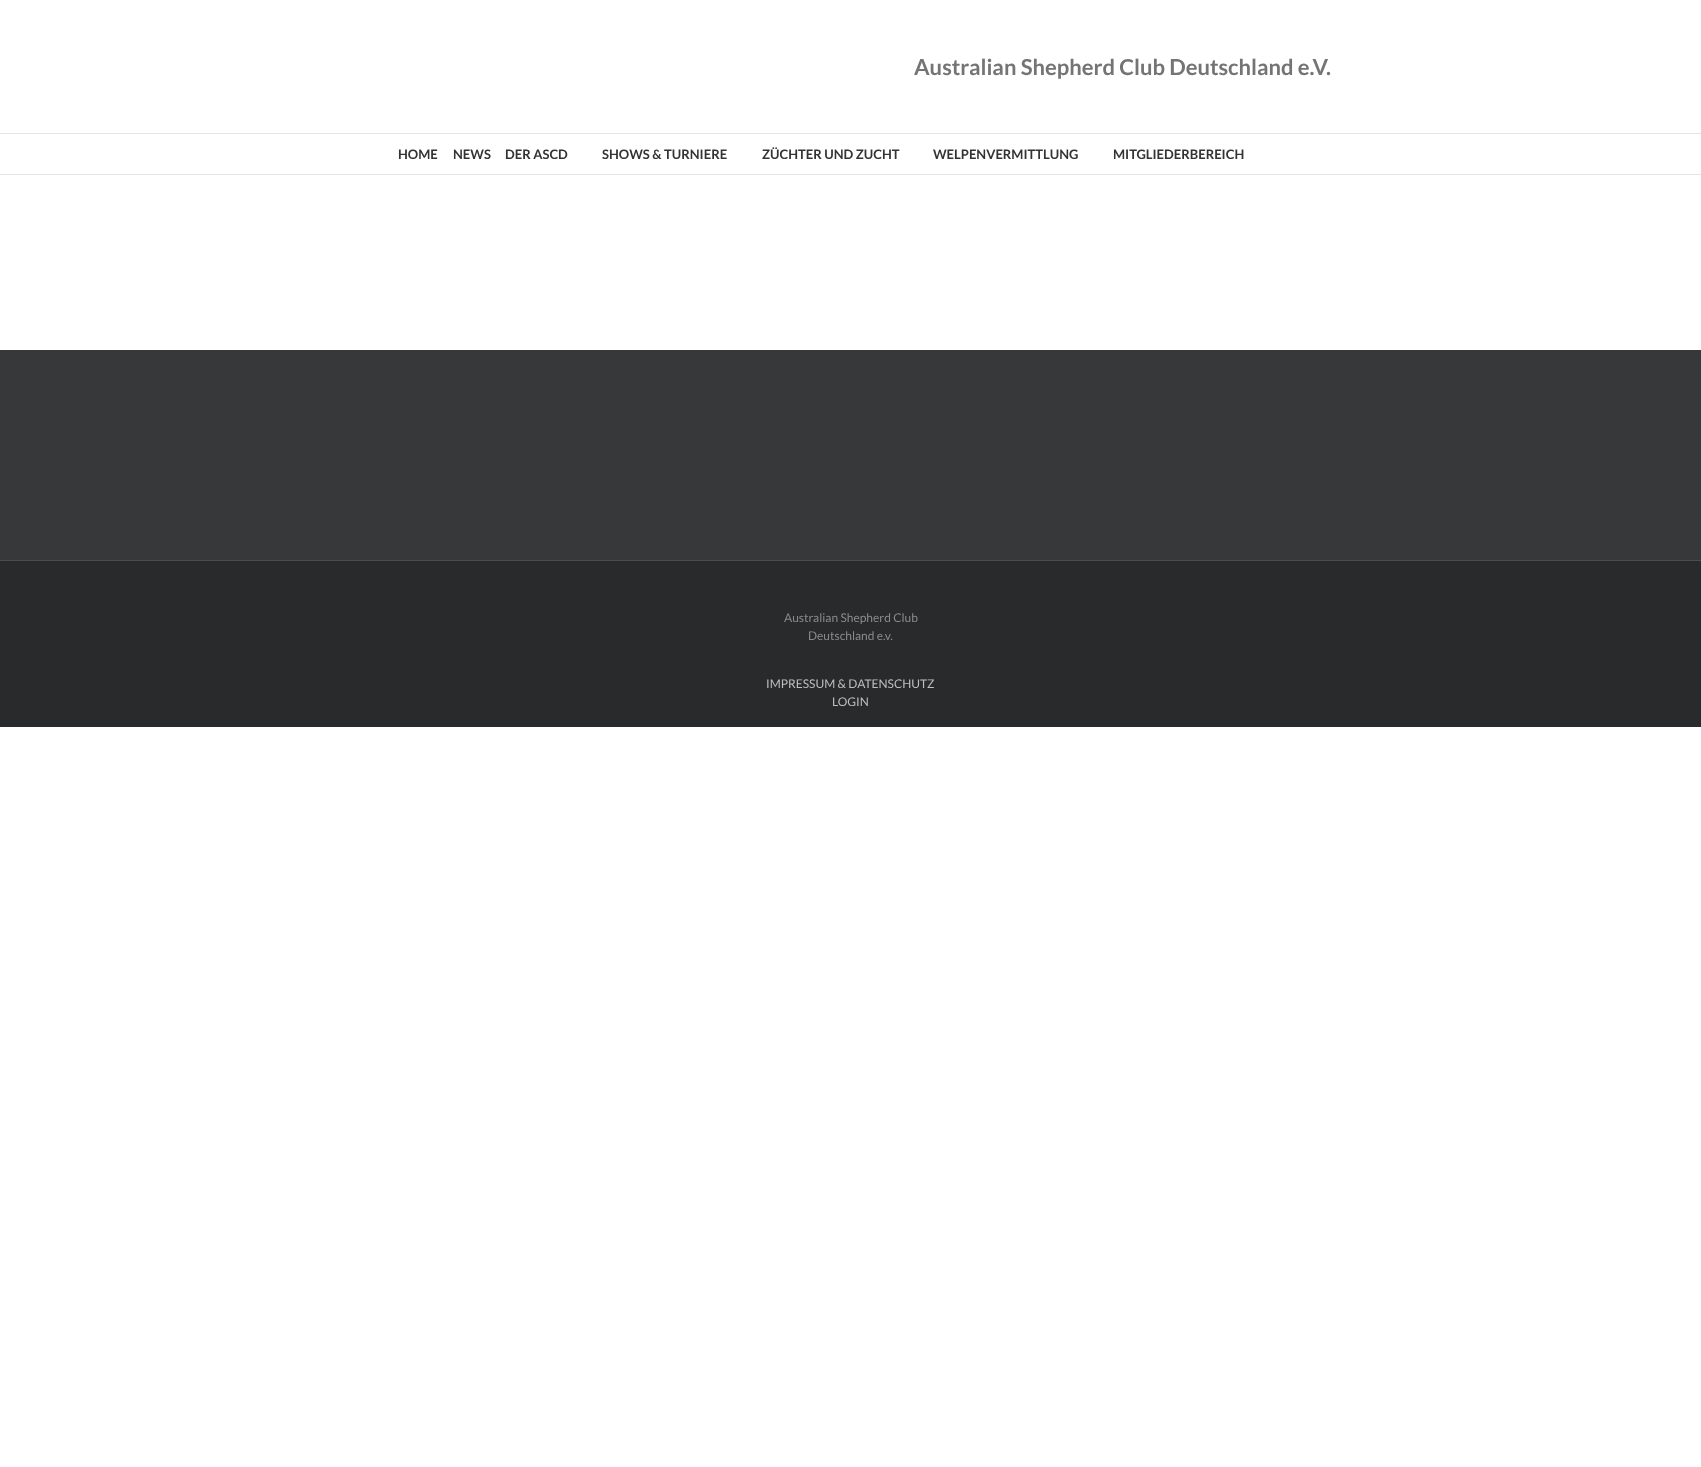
<!DOCTYPE html>
<meta charset="utf-8">
<style>body { margin: 0 } canvas { display: block }</style>
<canvas id="canvas" width="1701" height="1467"></canvas>
<script>
window.onload = function () {
	const canvas = document.getElementById("canvas");
	const ctx = canvas.getContext("2d");
	ctx.miterLimit = 4;
	ctx.fontKerning = "normal";
	function txt(s, x, y) {
		ctx.fillText(s, x, y);
	}
	function fill(x, y, w, h) {
		ctx.fillRect(x, y, w, h);
	}

	ctx.fillStyle = "#FFFFFF";
	fill(0, 0, 1701, 1467);
	ctx.fillStyle = "#E5E5E5";
	fill(0, 133, 1701, 1);
	fill(0, 174, 1701, 1);
	ctx.fillStyle = "#363839";
	fill(0, 350, 1701, 210);
	ctx.fillStyle = "#282A2B";
	fill(0, 561, 1701, 166);
	ctx.fillStyle = "#4B4C4D";
	fill(0, 560, 1701, 1);
	ctx.font = "bold 22px Lato";
	ctx.fillStyle = "#747474";
	txt("Australian Shepherd Club Deutschland e.V.", 914, 75);
	ctx.font = "bold 13px Lato";
	ctx.fillStyle = "#333333";
	txt("HOME", 398, 159);
	txt("NEWS", 453, 159);
	txt("DER ASCD", 505, 159);
	txt("SHOWS & TURNIERE", 602, 159);
	txt("ZÜCHTER UND ZUCHT", 762, 159);
	txt("WELPENVERMITTLUNG", 933, 159);
	txt("MITGLIEDERBEREICH", 1113, 159);
	ctx.font = "12px Lato";
	ctx.fillStyle = "#8C8989";
	txt("Australian Shepherd Club", 784, 622);
	txt("Deutschland e.v.", 808, 640);
	ctx.fillStyle = "#BFBFBF";
	txt("IMPRESSUM & DATENSCHUTZ", 766, 688);
	txt("LOGIN", 832, 706);
};
</script>
